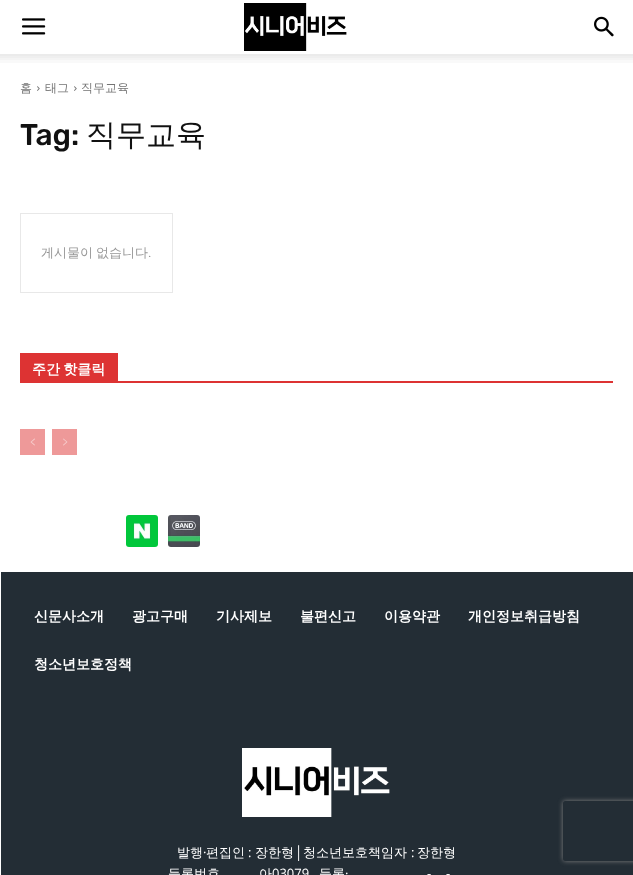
<!DOCTYPE html>
<meta charset="utf-8">
<style>body { margin: 0 } canvas { display: block }</style>
<canvas id="canvas" width="633" height="875"></canvas>
<img id="img1" src="img_01.png" hidden>
<img id="img2" src="img_02.png" hidden>
<img id="img3" src="img_03.png" hidden>
<img id="img4" src="img_04.png" hidden>
<img id="img5" src="img_05.png" hidden>
<img id="img6" src="img_06.png" hidden>
<img id="img7" src="img_07.png" hidden>
<img id="img8" src="img_08.png" hidden>
<img id="img9" src="img_09.png" hidden>
<img id="img10" src="img_10.png" hidden>
<script>
window.onload = function () {
	const canvas = document.getElementById("canvas");
	const ctx = canvas.getContext("2d");
	ctx.miterLimit = 4;
	ctx.fontKerning = "normal";
	function txt(s, x, y) {
		ctx.fillText(s, x, y);
	}
	function fill(x, y, w, h) {
		ctx.fillRect(x, y, w, h);
	}
	function img(id, x, y, w, h) {
		ctx.drawImage(document.getElementById(id), x, y, w, h);
	}

	ctx.fillStyle = "#FFFFFF";
	fill(0, 0, 633, 875);
	img("img1", 22, 18, 24, 17);
	img("img2", 244, 3, 103, 48);
	img("img3", 594, 16, 20, 21);
	img("img4", 0, 54, 633, 9);
	img("img5", 37, 86, 3, 5);
	img("img5", 74, 86, 3, 5);
	ctx.strokeStyle = "#E8E8E8";
	ctx.strokeRect(20.5, 213.5, 152, 79);
	ctx.fillStyle = "#DD3333";
	fill(20, 381, 593, 2);
	fill(20, 353, 98, 28);
	ctx.fillStyle = "#EE9999";
	fill(20, 429, 25, 26);
	img("img6", 30, 438, 5, 8);
	fill(52, 429, 25, 26);
	img("img7", 63, 438, 5, 8);
	img("img8", 126, 515, 32, 32);
	img("img9", 168, 515, 32, 32);
	ctx.fillStyle = "#232D35";
	fill(1, 572, 632, 303);
	img("img10", 242, 748, 148, 69);
	ctx.save();
	ctx.beginPath();
	ctx.moveTo(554, 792);
	ctx.lineTo(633, 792);
	ctx.lineTo(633, 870);
	ctx.lineTo(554, 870);
	ctx.closePath();
	ctx.moveTo(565, 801);
	ctx.lineTo(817, 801);
	ctx.bezierCurveTo(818, 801, 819, 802, 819, 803);
	ctx.lineTo(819, 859);
	ctx.bezierCurveTo(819, 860, 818, 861, 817, 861);
	ctx.lineTo(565, 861);
	ctx.bezierCurveTo(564, 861, 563, 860, 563, 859);
	ctx.lineTo(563, 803);
	ctx.bezierCurveTo(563, 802, 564, 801, 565, 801);
	ctx.closePath();
	ctx.clip("evenodd");
	ctx.fillStyle = "#808080";
	ctx.filter = "blur(2.5px)";
	ctx.beginPath();
	ctx.roundRect(563, 801, 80, 60, 2);
	ctx.fill();
	ctx.filter = "none";
	ctx.restore();
	ctx.font = "500 12px WenQuanYi Zen Hei";
	ctx.fillStyle = "#747474";
	txt("홈", 20, 92);
	txt("태그", 45, 92);
	txt("직무교육", 81, 92);
	ctx.font = "500 30px Rubik";
	ctx.fillStyle = "#111111";
	txt("Tag:", 20, 145);
	ctx.font = "500 30px WenQuanYi Zen Hei";
	txt("직무교육", 86, 145);
	ctx.wordSpacing = "-1px";
	ctx.font = "500 13px WenQuanYi Zen Hei";
	ctx.fillStyle = "#979797";
	txt("게시물이 없습니다", 41, 257);
	ctx.wordSpacing = "0px";
	ctx.font = "13px Roboto";
	txt(".", 148, 257);
	ctx.wordSpacing = "-1px";
	ctx.font = "bold 14px WenQuanYi Zen Hei";
	ctx.fillStyle = "#FFFFFF";
	txt("주간 핫클릭", 32, 374);
	ctx.wordSpacing = "0px";
	txt("신문사소개", 34, 621);
	txt("광고구매", 132, 621);
	txt("기사제보", 216, 621);
	txt("불편신고", 300, 621);
	txt("이용약관", 384, 621);
	txt("개인정보취급방침", 468, 621);
	txt("청소년보호정책", 34, 669);
	ctx.font = "500 13px WenQuanYi Zen Hei";
	txt("발행", 177, 857);
	ctx.font = "13px Open Sans";
	txt("·", 203, 857);
	ctx.font = "500 13px WenQuanYi Zen Hei";
	txt("편집인", 206, 857);
	ctx.font = "13px Open Sans";
	txt(":", 248, 857);
	ctx.font = "500 13px WenQuanYi Zen Hei";
	txt("장한형", 255, 857);
	ctx.font = "13px Liberation Serif";
	txt("│", 294, 857);
	ctx.font = "500 13px WenQuanYi Zen Hei";
	txt("청소년보호책임자", 303, 857);
	ctx.font = "13px Open Sans";
	txt(":", 411, 857);
	ctx.font = "500 13px WenQuanYi Zen Hei";
	txt("장한형", 417, 857);
	txt("등록번호", 168, 878);
	txt("아", 259, 878);
	ctx.font = "13px Open Sans";
	txt("03079", 272, 878);
	ctx.font = "500 13px WenQuanYi Zen Hei";
	txt("등록", 319, 878);
	ctx.font = "13px Open Sans";
	txt("·", 345, 878);
	txt("-", 427, 878);
	txt("-", 446, 878);
};
</script>
